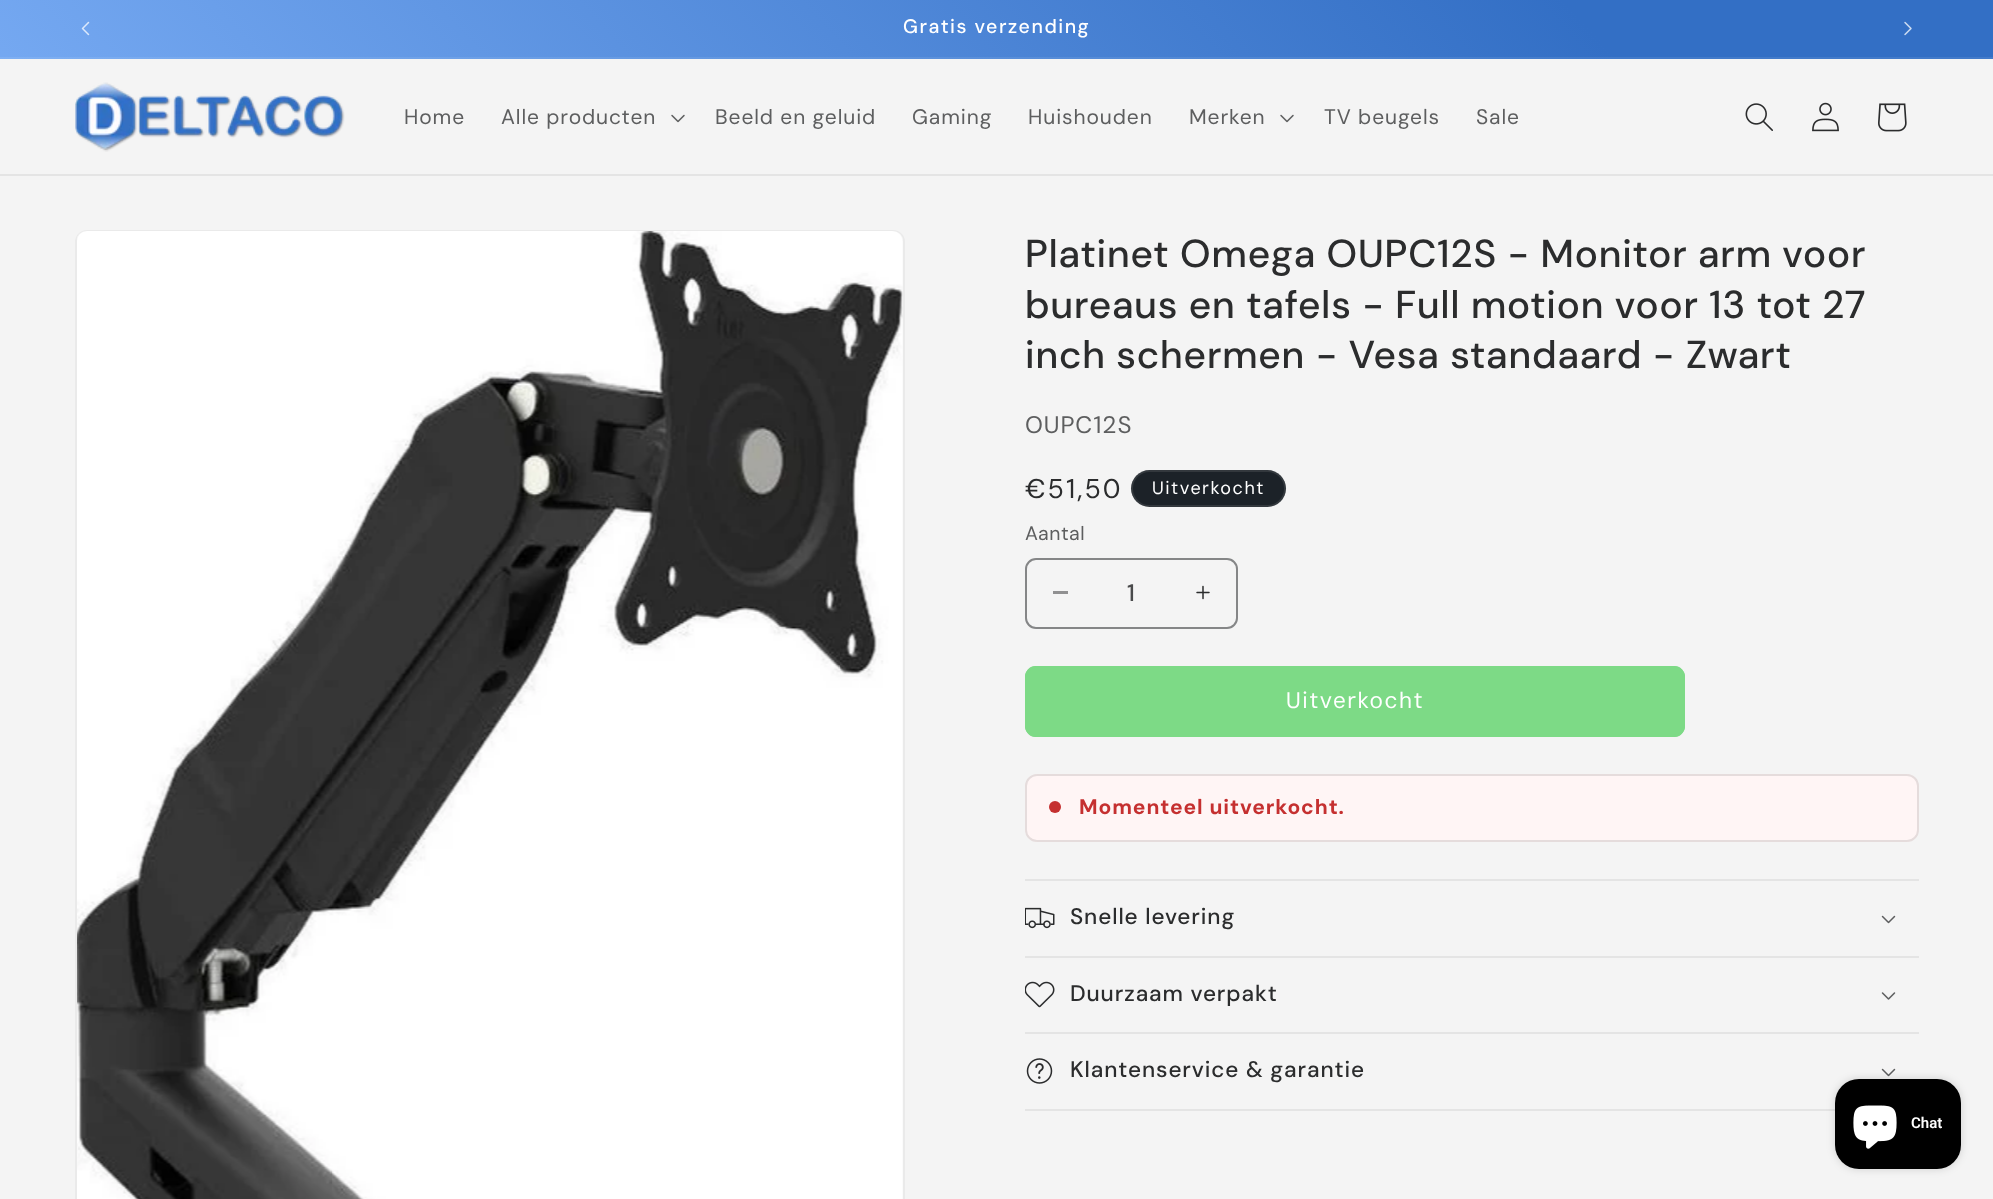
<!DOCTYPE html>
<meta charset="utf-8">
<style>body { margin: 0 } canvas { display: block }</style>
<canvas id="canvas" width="1993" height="1199"></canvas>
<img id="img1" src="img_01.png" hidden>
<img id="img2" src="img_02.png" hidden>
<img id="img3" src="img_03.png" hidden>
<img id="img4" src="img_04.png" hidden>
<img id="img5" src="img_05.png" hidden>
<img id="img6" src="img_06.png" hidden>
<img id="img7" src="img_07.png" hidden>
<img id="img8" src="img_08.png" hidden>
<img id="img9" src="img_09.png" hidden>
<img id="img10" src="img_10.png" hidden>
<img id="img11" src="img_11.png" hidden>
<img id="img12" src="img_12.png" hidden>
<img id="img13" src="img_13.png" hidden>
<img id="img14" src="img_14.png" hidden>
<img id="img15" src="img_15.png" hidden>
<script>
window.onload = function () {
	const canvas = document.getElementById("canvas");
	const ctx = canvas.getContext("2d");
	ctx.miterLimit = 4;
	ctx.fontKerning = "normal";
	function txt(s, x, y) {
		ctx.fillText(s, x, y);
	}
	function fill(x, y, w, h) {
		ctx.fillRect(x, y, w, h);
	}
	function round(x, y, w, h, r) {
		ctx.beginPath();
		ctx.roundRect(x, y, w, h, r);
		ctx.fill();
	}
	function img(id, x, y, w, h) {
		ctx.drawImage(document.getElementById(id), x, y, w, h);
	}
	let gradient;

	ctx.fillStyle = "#F4F4F4";
	fill(0, 0, 1993, 1199);
	gradient = ctx.createLinearGradient(1846, -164, 148, 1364);
	gradient.addColorStop(0.14, "#336FC5");
	gradient.addColorStop(0.83, "#89BAFF");
	ctx.fillStyle = gradient;
	fill(0, 0, 1993, 57);
	gradient = ctx.createLinearGradient(1846, -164, 148, 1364);
	gradient.addColorStop(0.14, "#437BCA");
	gradient.addColorStop(0.83, "#92C0FF");
	ctx.fillStyle = gradient;
	fill(0, 57, 1993, 2);
	img("img1", 81, 21, 9, 15);
	img("img2", 1904, 21, 8, 15);
	ctx.fillStyle = "#E4E4E4";
	fill(0, 174, 1993, 2);
	img("img3", 75, 82, 270, 70);
	img("img4", 671, 114, 14, 9);
	img("img4", 1280, 114, 14, 9);
	img("img5", 1745, 103, 28, 28);
	img("img6", 1812, 102, 27, 30);
	img("img7", 1878, 103, 29, 29);
	ctx.beginPath();
	ctx.roundRect(76, 231, 828, 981, 11);
	ctx.strokeStyle = "#EAEAEA";
	ctx.lineWidth = 2;
	ctx.stroke();
	img("img8", 77, 231, 826, 968);
	ctx.fillStyle = "#1C2228";
	round(1131, 470, 155, 37, 18.5);
	ctx.beginPath();
	ctx.roundRect(1132, 471, 153, 35, 17.5);
	ctx.strokeStyle = "rgba(255, 255, 255, 0.1)";
	ctx.stroke();
	ctx.fillStyle = "#909091";
	fill(1053, 591, 15, 3);
	img("img9", 1196, 585, 14, 15);
	ctx.beginPath();
	ctx.roundRect(1026, 559, 211, 69, 10);
	ctx.strokeStyle = "#858687";
	ctx.stroke();
	ctx.fillStyle = "#7DDA86";
	round(1025, 666, 660, 71, 11);
	ctx.beginPath();
	ctx.roundRect(1026, 667, 658, 69, 10);
	ctx.strokeStyle = "#7DDA86";
	ctx.stroke();
	ctx.fillStyle = "#FFF5F5";
	round(1025, 774, 894, 68, 12);
	ctx.beginPath();
	ctx.roundRect(1026, 775, 892, 66, 11);
	ctx.strokeStyle = "rgba(0, 0, 0, 0.1)";
	ctx.stroke();
	ctx.fillStyle = "#C53030";
	ctx.beginPath();
	ctx.arc(1055, 807, 6, 0, Math.PI * 2);
	ctx.fill();
	ctx.fillStyle = "#E4E4E4";
	fill(1025, 879, 894, 2);
	fill(1025, 956, 894, 2);
	img("img10", 1025, 907, 30, 22);
	img("img11", 1881, 915, 15, 9);
	fill(1025, 1032, 894, 2);
	img("img12", 1025, 981, 30, 27);
	img("img13", 1881, 992, 15, 8);
	fill(1025, 1109, 810, 2);
	img("img14", 1026, 1058, 27, 26);
	img("img11", 1881, 1068, 15, 9);
	ctx.fillStyle = "rgba(0, 0, 0, 0.15)";
	ctx.filter = "blur(4px)";
	ctx.beginPath();
	ctx.roundRect(1835, 1079, 126, 90, 24);
	ctx.fill();
	ctx.filter = "none";
	ctx.fillStyle = "#000000";
	round(1835, 1079, 126, 90, 24);
	img("img15", 1853, 1105, 44, 44);
	ctx.letterSpacing = "1.5px";
	ctx.font = "500 19.5px 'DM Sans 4'";
	ctx.fillStyle = "#FFFFFF";
	txt("Gratis verzending", 903, 33);
	ctx.letterSpacing = "0.9px";
	ctx.font = "21px 'DM Sans 4'";
	ctx.fillStyle = "#5D5E5F";
	txt("Home", 404, 124);
	txt("Alle producten", 501, 124);
	txt("Beeld en geluid", 715, 124);
	txt("Gaming", 912, 124);
	txt("Huishouden", 1028, 124);
	txt("Merken", 1189, 124);
	txt("TV beugels", 1324, 124);
	txt("Sale", 1476, 124);
	ctx.font = "500 39px DM Sans";
	ctx.fillStyle = "#2B2C2D";
	txt("Platinet Omega OUPC12S - Monitor arm voor", 1025, 267);
	txt("bureaus en tafels - Full motion voor 13 tot 27", 1025, 318);
	txt("inch schermen - Vesa standaard - Zwart", 1025, 368);
	ctx.font = "24px DM Sans";
	ctx.fillStyle = "#5D5E5F";
	txt("OUPC12S", 1025, 433);
	ctx.letterSpacing = "2px";
	ctx.font = "27px DM Sans";
	ctx.fillStyle = "#2B2C2D";
	txt("€51,50", 1025, 498);
	ctx.letterSpacing = "1.5px";
	ctx.font = "18px 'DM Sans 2'";
	ctx.fillStyle = "#FFFFFF";
	txt("Uitverkocht", 1152, 494);
	ctx.letterSpacing = "0.5px";
	ctx.font = "19.5px 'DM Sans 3'";
	ctx.fillStyle = "#5D5E5F";
	txt("Aantal", 1025, 540);
	ctx.letterSpacing = "0px";
	ctx.font = "500 24px 'DM Sans 2'";
	ctx.fillStyle = "#494A4B";
	txt("1", 1127, 601);
	ctx.letterSpacing = "1.5px";
	ctx.font = "22.5px DM Sans";
	ctx.fillStyle = "#FFFFFF";
	txt("Uitverkocht", 1286, 708);
	ctx.letterSpacing = "0.9px";
	ctx.font = "bold 21px DM Sans";
	ctx.fillStyle = "#C53030";
	txt("Momenteel uitverkocht.", 1079, 814);
	ctx.font = "500 22.5px 'DM Sans 3'";
	ctx.fillStyle = "#2B2C2D";
	txt("Snelle levering", 1070, 924);
	txt("Duurzaam verpakt", 1070, 1001);
	txt("Klantenservice & garantie", 1070, 1077);
	ctx.letterSpacing = "0px";
	ctx.font = "600 15px Roboto";
	ctx.fillStyle = "#FFFFFF";
	txt("Chat", 1911, 1128);
};
</script>
